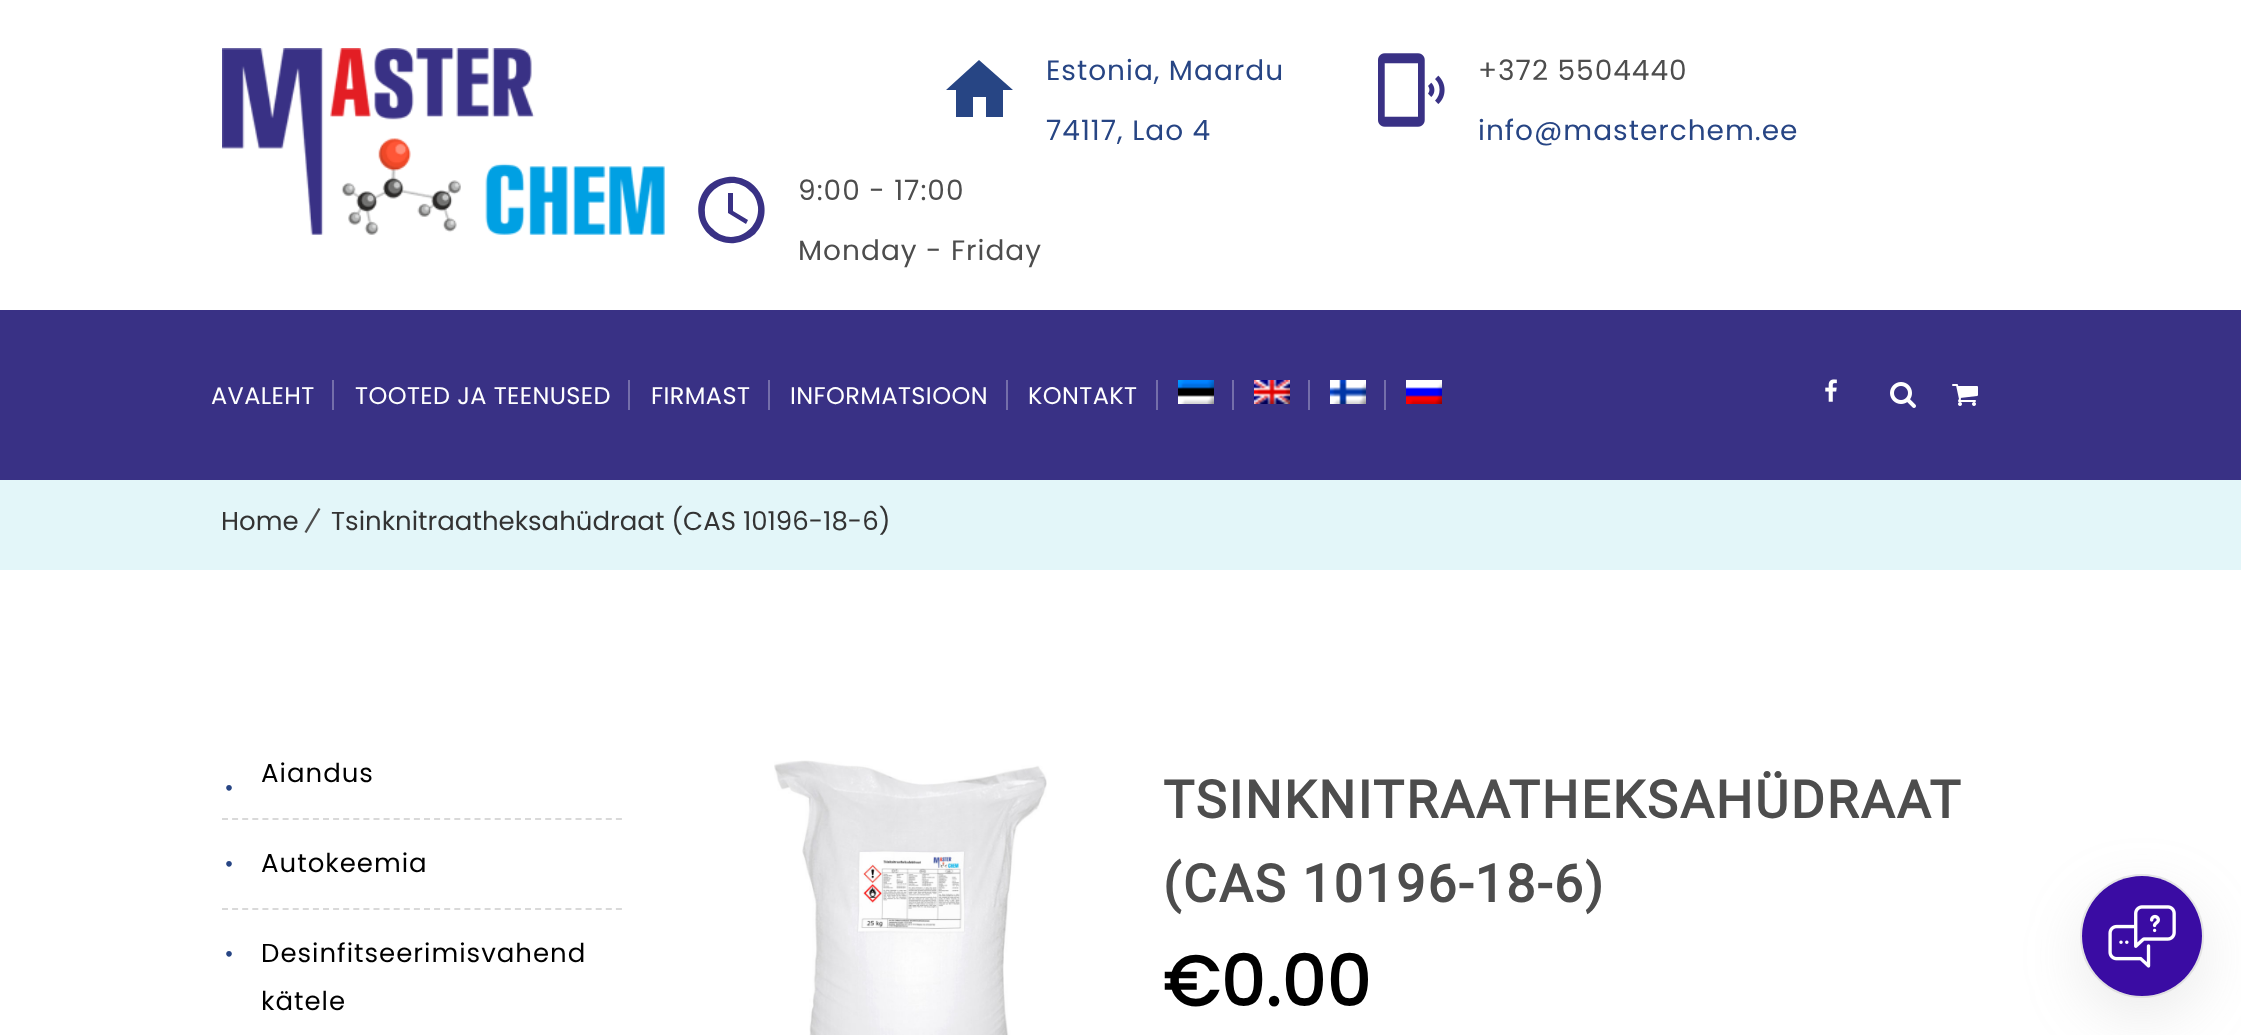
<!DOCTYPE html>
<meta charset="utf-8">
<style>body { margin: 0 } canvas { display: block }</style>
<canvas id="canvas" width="2241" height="1035"></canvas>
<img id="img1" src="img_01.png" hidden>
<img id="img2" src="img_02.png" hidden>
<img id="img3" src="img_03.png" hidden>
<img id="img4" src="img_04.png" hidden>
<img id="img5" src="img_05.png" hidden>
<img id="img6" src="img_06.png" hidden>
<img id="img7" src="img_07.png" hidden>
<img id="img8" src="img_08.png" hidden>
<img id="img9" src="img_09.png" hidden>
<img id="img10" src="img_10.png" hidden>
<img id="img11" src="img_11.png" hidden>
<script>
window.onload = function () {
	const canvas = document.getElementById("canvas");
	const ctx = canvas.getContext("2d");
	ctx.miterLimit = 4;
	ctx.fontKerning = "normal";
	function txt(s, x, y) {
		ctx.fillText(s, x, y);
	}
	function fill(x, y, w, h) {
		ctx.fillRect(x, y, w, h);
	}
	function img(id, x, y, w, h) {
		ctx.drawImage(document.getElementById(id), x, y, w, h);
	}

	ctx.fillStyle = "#FFFFFF";
	fill(0, 0, 2241, 1035);
	img("img1", 222, 48, 443, 187);
	ctx.fillStyle = "#274584";
	ctx.beginPath();
	ctx.moveTo(973, 117);
	ctx.lineTo(956, 117);
	ctx.lineTo(956, 90);
	ctx.lineTo(946, 90);
	ctx.lineTo(979, 60);
	ctx.lineTo(1013, 90);
	ctx.lineTo(1003, 90);
	ctx.lineTo(1003, 117);
	ctx.lineTo(986, 117);
	ctx.lineTo(986, 97);
	ctx.lineTo(973, 97);
	ctx.closePath();
	ctx.fill();
	img("img2", 1378, 53, 67, 74);
	ctx.fillStyle = "#393185";
	ctx.beginPath();
	ctx.moveTo(708, 186);
	ctx.bezierCurveTo(713, 181, 720, 178, 728, 177);
	ctx.bezierCurveTo(759, 174, 777, 211, 755, 234);
	ctx.bezierCurveTo(749, 239, 742, 242, 735, 243);
	ctx.bezierCurveTo(704, 246, 686, 209, 708, 186);
	ctx.closePath();
	ctx.moveTo(713, 229);
	ctx.bezierCurveTo(730, 247, 760, 232, 758, 207);
	ctx.bezierCurveTo(757, 201, 755, 195, 750, 191);
	ctx.bezierCurveTo(732, 173, 703, 188, 705, 213);
	ctx.bezierCurveTo(705, 219, 708, 225, 713, 229);
	ctx.closePath();
	ctx.moveTo(733, 193);
	ctx.lineTo(733, 211);
	ctx.lineTo(748, 220);
	ctx.lineTo(746, 224);
	ctx.lineTo(728, 213);
	ctx.lineTo(728, 193);
	ctx.closePath();
	ctx.fill();
	fill(0, 310, 2241, 170);
	ctx.fillStyle = "#746FAA";
	fill(332, 380, 2, 30);
	fill(628, 380, 2, 30);
	fill(768, 380, 2, 30);
	fill(1006, 380, 2, 30);
	fill(1156, 380, 2, 30);
	img("img3", 1178, 380, 36, 24);
	fill(1232, 380, 2, 30);
	img("img4", 1254, 380, 36, 24);
	fill(1308, 380, 2, 30);
	img("img5", 1330, 380, 36, 24);
	fill(1384, 380, 2, 30);
	img("img6", 1406, 380, 36, 24);
	img("img7", 1825, 379, 12, 23);
	img("img8", 1890, 382, 26, 26);
	img("img9", 1952, 384, 26, 22);
	ctx.fillStyle = "#E3F6F9";
	fill(0, 480, 2241, 90);
	ctx.fillStyle = "#4D4D4D";
	ctx.beginPath();
	ctx.moveTo(318.5, 508);
	ctx.lineTo(320.5, 509);
	ctx.lineTo(306.5, 533);
	ctx.lineTo(304.5, 532);
	ctx.closePath();
	ctx.fill();
	ctx.beginPath();
	ctx.moveTo(222, 819);
	ctx.lineTo(622, 819);
	ctx.strokeStyle = "#D9D9D9";
	ctx.lineWidth = 2;
	ctx.setLineDash([6, 4.1]);
	ctx.stroke();
	ctx.beginPath();
	ctx.moveTo(222, 909);
	ctx.lineTo(622, 909);
	ctx.stroke();
	img("img10", 774, 760, 273, 275);
	ctx.beginPath();
	ctx.arc(2142, 936, 61, 0, Math.PI * 2);
	ctx.strokeStyle = "#EAEAEA";
	ctx.setLineDash([]);
	ctx.stroke();
	ctx.fillStyle = "rgba(150, 150, 150, 0.2)";
	ctx.filter = "blur(30px)";
	ctx.beginPath();
	ctx.roundRect(2082, 896, 120, 120, 60);
	ctx.fill();
	ctx.filter = "none";
	ctx.fillStyle = "#3A0CA3";
	ctx.beginPath();
	ctx.arc(2142, 936, 60, 0, Math.PI * 2);
	ctx.fill();
	img("img11", 2108, 905, 68, 63);
	ctx.letterSpacing = "1px";
	ctx.font = "28px Poppins";
	ctx.fillStyle = "#274584";
	txt("Estonia, Maardu", 1046, 80);
	txt("74117, Lao 4", 1046, 140);
	ctx.fillStyle = "#4D4D4D";
	txt("+372 5504440", 1478, 80);
	ctx.fillStyle = "#274584";
	txt("info@masterchem.ee", 1478, 140);
	ctx.fillStyle = "#4D4D4D";
	txt("9:00 - 17:00", 798, 200);
	txt("Monday - Friday", 798, 260);
	ctx.letterSpacing = "0.4px";
	ctx.font = "24px Poppins";
	ctx.fillStyle = "#FFFFFF";
	txt("AVALEHT", 211, 404);
	txt("TOOTED JA TEENUSED", 355, 404);
	txt("FIRMAST", 651, 404);
	txt("INFORMATSIOON", 790, 404);
	txt("KONTAKT", 1028, 404);
	ctx.letterSpacing = "0px";
	ctx.font = "26px Poppins";
	ctx.fillStyle = "#333333";
	txt("Home", 221, 530);
	txt("Tsinknitraatheksahüdraat (CAS 10196-18-6)", 331, 530);
	ctx.letterSpacing = "1px";
	ctx.fillStyle = "#000000";
	txt("Aiandus", 261, 782);
	ctx.font = "48px Liberation Serif";
	ctx.fillStyle = "#274584";
	txt(".", 223, 790);
	txt(".", 223, 866);
	ctx.font = "26px Poppins";
	ctx.fillStyle = "#000000";
	txt("Autokeemia", 261, 872);
	ctx.font = "48px Liberation Serif";
	ctx.fillStyle = "#274584";
	txt(".", 223, 956);
	ctx.font = "26px Poppins";
	ctx.fillStyle = "#000000";
	txt("Desinfitseerimisvahend", 261, 962);
	txt("kätele", 261, 1010);
	ctx.letterSpacing = "2px";
	ctx.font = "bold 52px Roboto";
	ctx.fillStyle = "#4D4D4D";
	txt("TSINKNITRAATHEKSAHÜDRAAT", 1163, 818);
	txt("(CAS 10196-18-6)", 1163, 902);
	ctx.letterSpacing = "1px";
	ctx.font = "bold 70px Poppins";
	ctx.fillStyle = "#000000";
	txt("€0.00", 1163, 1006);
};
</script>
